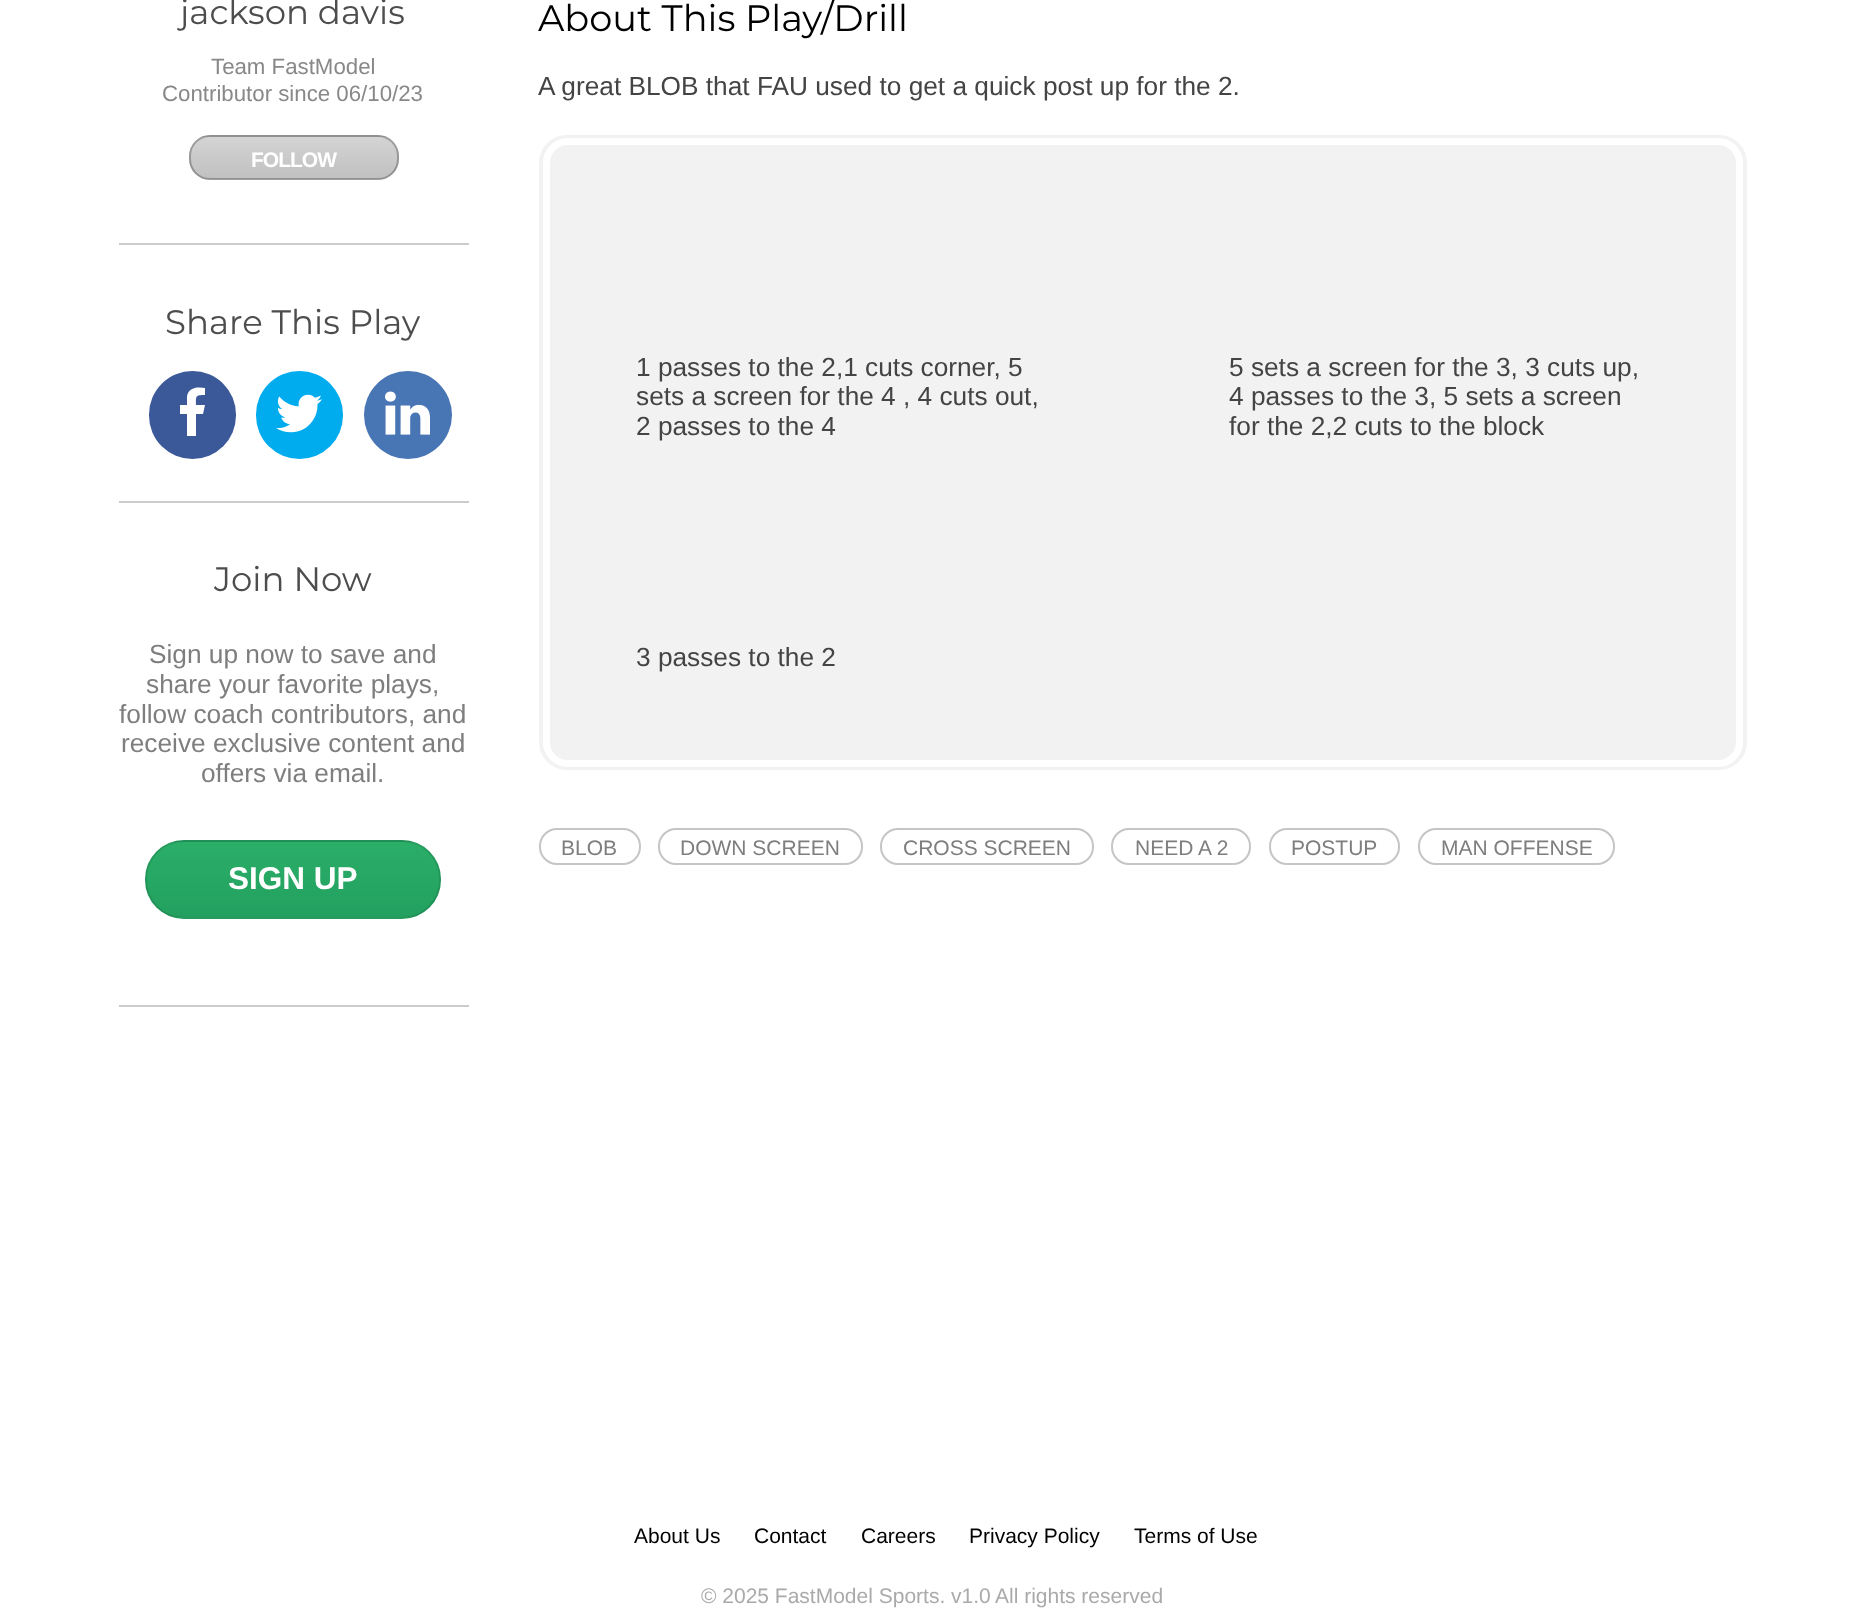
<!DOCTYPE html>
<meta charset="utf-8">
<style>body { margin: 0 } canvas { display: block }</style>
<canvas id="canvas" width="1863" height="1620"></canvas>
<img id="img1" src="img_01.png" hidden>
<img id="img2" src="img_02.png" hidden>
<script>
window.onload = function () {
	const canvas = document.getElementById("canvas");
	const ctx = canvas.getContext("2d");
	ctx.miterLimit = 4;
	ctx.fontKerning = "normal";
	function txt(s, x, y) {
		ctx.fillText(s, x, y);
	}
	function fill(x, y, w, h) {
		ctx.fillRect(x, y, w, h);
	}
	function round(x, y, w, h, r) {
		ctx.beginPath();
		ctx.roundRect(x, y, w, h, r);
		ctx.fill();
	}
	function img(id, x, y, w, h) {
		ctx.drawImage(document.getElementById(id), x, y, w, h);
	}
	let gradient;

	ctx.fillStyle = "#FFFFFF";
	fill(0, 0, 1863, 1620);
	ctx.fillStyle = "#CCCCCC";
	fill(119, 243, 350, 2);
	ctx.save();
	ctx.beginPath();
	ctx.roundRect(189, 135, 210, 45, 21);
	ctx.clip();
	gradient = ctx.createLinearGradient(294, 94, 294, 137);
	gradient.addColorStop(0, "#D4D4D4");
	gradient.addColorStop(1, "#C0C0C0");
	ctx.fillStyle = gradient;
	fill(201, 135, 186, 2);
	gradient = ctx.createLinearGradient(294, 137, 294, 179);
	gradient.addColorStop(0, "#D4D4D4");
	gradient.addColorStop(1, "#C0C0C0");
	ctx.fillStyle = gradient;
	fill(189, 137, 210, 42);
	gradient = ctx.createLinearGradient(294, 179, 294, 221);
	gradient.addColorStop(0, "#D4D4D4");
	gradient.addColorStop(1, "#C0C0C0");
	ctx.fillStyle = gradient;
	fill(203, 179, 182, 1);
	ctx.restore();
	ctx.beginPath();
	ctx.roundRect(190, 136, 208, 43, 20);
	ctx.strokeStyle = "rgba(0, 0, 0, 0.25)";
	ctx.lineWidth = 2;
	ctx.stroke();
	fill(119, 501, 350, 2);
	ctx.fillStyle = "#3B5998";
	round(149, 371, 87, 88, 43.5);
	ctx.fillStyle = "#FFFFFF";
	ctx.beginPath();
	ctx.moveTo(205, 388);
	ctx.lineTo(205, 395);
	ctx.bezierCurveTo(195, 395, 196, 396, 196, 405);
	ctx.lineTo(205, 405);
	ctx.lineTo(203, 414);
	ctx.lineTo(196, 414);
	ctx.lineTo(196, 436);
	ctx.lineTo(187, 436);
	ctx.lineTo(187, 414);
	ctx.lineTo(180, 414);
	ctx.lineTo(180, 405);
	ctx.lineTo(187, 405);
	ctx.lineTo(187, 396);
	ctx.bezierCurveTo(189, 387, 198, 387, 205, 388);
	ctx.closePath();
	ctx.fill();
	ctx.fillStyle = "#00ACED";
	round(256, 371, 87, 88, 43.5);
	img("img1", 276, 394, 46, 39);
	ctx.fillStyle = "#4875B4";
	ctx.beginPath();
	ctx.arc(408, 415, 44, 0, Math.PI * 2);
	ctx.fill();
	img("img2", 385, 391, 45, 44);
	ctx.fillStyle = "#CCCCCC";
	fill(119, 1005, 350, 2);
	ctx.save();
	ctx.beginPath();
	ctx.roundRect(145, 840, 296, 79, 39);
	ctx.clip();
	gradient = ctx.createLinearGradient(293, 767, 293, 842);
	gradient.addColorStop(0, "#2AAE68");
	gradient.addColorStop(1, "#23A05F");
	ctx.fillStyle = gradient;
	fill(172, 840, 242, 2);
	gradient = ctx.createLinearGradient(293, 842, 293, 917);
	gradient.addColorStop(0, "#2AAE68");
	gradient.addColorStop(1, "#23A05F");
	ctx.fillStyle = gradient;
	fill(145, 842, 296, 75);
	gradient = ctx.createLinearGradient(293, 917, 293, 992);
	gradient.addColorStop(0, "#2AAE68");
	gradient.addColorStop(1, "#23A05F");
	ctx.fillStyle = gradient;
	fill(172, 917, 242, 2);
	ctx.restore();
	ctx.beginPath();
	ctx.roundRect(146, 841, 294, 77, 38);
	ctx.strokeStyle = "rgba(0, 0, 0, 0.1)";
	ctx.stroke();
	ctx.beginPath();
	ctx.roundRect(541, 137, 1204, 631, 26);
	ctx.strokeStyle = "#F2F2F2";
	ctx.lineWidth = 4;
	ctx.stroke();
	ctx.fillStyle = "#F2F2F2";
	ctx.beginPath();
	ctx.roundRect(546.5, 141.5, 1193, 622, 21.5);
	ctx.fill();
	ctx.strokeStyle = "#FFFFFF";
	ctx.lineWidth = 7;
	ctx.stroke();
	ctx.beginPath();
	ctx.roundRect(540, 829, 100, 35, 17);
	ctx.strokeStyle = "#C5C5C5";
	ctx.lineWidth = 2;
	ctx.stroke();
	ctx.beginPath();
	ctx.roundRect(659, 829, 203, 35, 17);
	ctx.stroke();
	ctx.beginPath();
	ctx.roundRect(881, 829, 212, 35, 17);
	ctx.stroke();
	ctx.beginPath();
	ctx.roundRect(1112, 829, 138, 35, 17);
	ctx.stroke();
	ctx.beginPath();
	ctx.roundRect(1270, 829, 129, 35, 17);
	ctx.stroke();
	ctx.beginPath();
	ctx.roundRect(1419, 829, 195, 35, 17);
	ctx.stroke();
	ctx.font = "34px Montserrat";
	ctx.fillStyle = "#4D4D4D";
	txt("jackson davis", 180, 24);
	ctx.font = "22.25px Liberation Sans";
	ctx.fillStyle = "#888888";
	txt("Team FastModel", 211, 74);
	txt("Contributor since 06/10/23", 162, 101);
	ctx.letterSpacing = "-1px";
	ctx.font = "bold 21px Liberation Sans";
	ctx.fillStyle = "#FFFFFF";
	txt("FOLLOW", 251, 167);
	ctx.letterSpacing = "0px";
	ctx.font = "34px Montserrat";
	ctx.fillStyle = "#4D4D4D";
	txt("Share This Play", 165, 334);
	txt("Join Now", 214, 591);
	ctx.font = "26.25px Liberation Sans";
	ctx.fillStyle = "#7E7E7E";
	txt("Sign up now to save and", 149, 663);
	txt("share your favorite plays,", 146, 693);
	txt("follow coach contributors, and", 119, 723);
	txt("receive exclusive content and", 121, 752);
	txt("offers via email.", 201, 782);
	ctx.font = "bold 31.5px Liberation Sans";
	ctx.fillStyle = "#FFFFFF";
	txt("SIGN UP", 228, 889);
	ctx.font = "36.75px Montserrat";
	ctx.fillStyle = "#000000";
	txt("About This Play/Drill", 538, 31);
	ctx.font = "26.25px Liberation Sans";
	ctx.fillStyle = "#444444";
	txt("A great BLOB that FAU used to get a quick post up for the 2.", 538, 95);
	txt("1 passes to the 2,1 cuts corner, 5", 636, 376);
	txt("sets a screen for the 4 , 4 cuts out,", 636, 405);
	txt("2 passes to the 4", 636, 435);
	txt("5 sets a screen for the 3, 3 cuts up,", 1229, 376);
	txt("4 passes to the 3, 5 sets a screen", 1229, 405);
	txt("for the 2,2 cuts to the block", 1229, 435);
	txt("3 passes to the 2", 636, 666);
	ctx.font = "21px Liberation Sans";
	ctx.fillStyle = "#7E7E7E";
	txt("BLOB", 561, 855);
	txt("DOWN SCREEN", 680, 855);
	txt("CROSS SCREEN", 903, 855);
	txt("NEED A 2", 1135, 855);
	txt("POSTUP", 1291, 855);
	txt("MAN OFFENSE", 1441, 855);
	ctx.fillStyle = "#000000";
	txt("About Us", 634, 1543);
	txt("Contact", 754, 1543);
	txt("Careers", 861, 1543);
	txt("Privacy Policy", 969, 1543);
	txt("Terms of Use", 1134, 1543);
	ctx.fillStyle = "#AAAAAA";
	txt("© 2025 FastModel Sports. v1.0", 701, 1603);
	txt("All rights reserved", 995, 1603);
};
</script>
